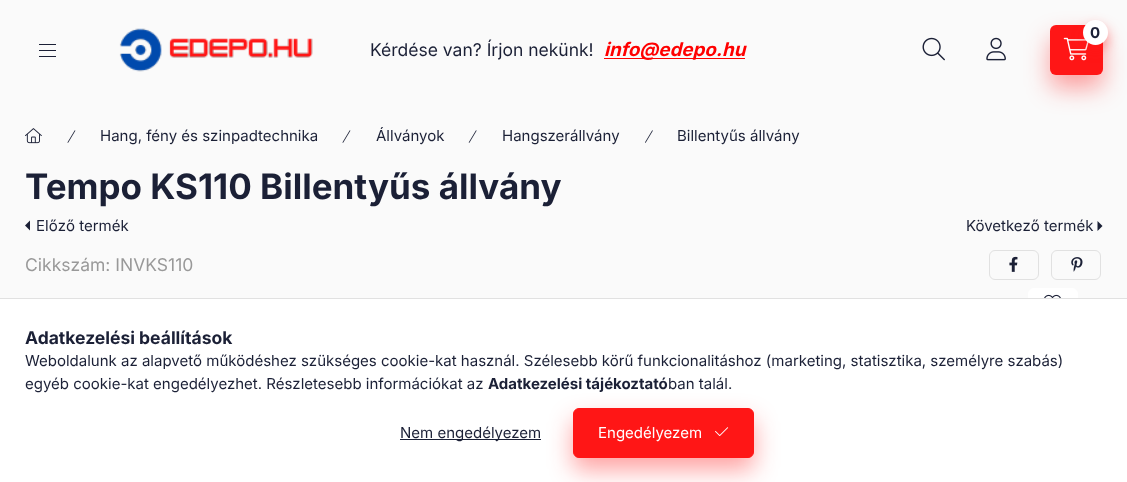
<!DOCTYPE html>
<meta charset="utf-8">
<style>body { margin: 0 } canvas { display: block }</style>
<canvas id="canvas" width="1127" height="482"></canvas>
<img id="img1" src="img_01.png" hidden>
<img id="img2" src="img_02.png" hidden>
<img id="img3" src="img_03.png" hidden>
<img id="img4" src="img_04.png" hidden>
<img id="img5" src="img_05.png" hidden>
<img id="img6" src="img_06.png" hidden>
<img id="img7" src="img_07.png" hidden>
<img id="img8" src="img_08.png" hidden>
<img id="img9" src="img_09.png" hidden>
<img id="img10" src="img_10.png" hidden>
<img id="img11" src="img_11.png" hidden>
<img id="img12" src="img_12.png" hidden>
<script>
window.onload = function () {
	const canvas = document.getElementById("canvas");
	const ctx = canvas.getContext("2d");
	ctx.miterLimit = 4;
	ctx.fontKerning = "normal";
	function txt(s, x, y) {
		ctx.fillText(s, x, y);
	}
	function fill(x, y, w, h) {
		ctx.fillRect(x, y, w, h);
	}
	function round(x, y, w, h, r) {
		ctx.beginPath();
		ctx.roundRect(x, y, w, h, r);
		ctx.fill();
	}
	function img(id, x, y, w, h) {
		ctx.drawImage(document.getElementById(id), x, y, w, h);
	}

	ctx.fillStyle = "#FAFAFA";
	fill(0, 0, 1127, 482);
	ctx.fillStyle = "rgba(255, 22, 22, 0.4)";
	ctx.filter = "blur(12.5px)";
	ctx.beginPath();
	ctx.roundRect(1050, 38, 53, 50, 6);
	ctx.fill();
	ctx.filter = "none";
	ctx.fillStyle = "#FF1616";
	round(1050, 25, 53, 50, 6);
	img("img1", 1063, 37, 26, 24);
	ctx.fillStyle = "rgba(255, 22, 22, 0.4)";
	ctx.filter = "blur(6px)";
	ctx.beginPath();
	ctx.roundRect(1083, 26, 25, 25, 12.5);
	ctx.fill();
	ctx.filter = "none";
	ctx.fillStyle = "#FFFFFF";
	ctx.beginPath();
	ctx.arc(1095.5, 32.5, 12.5, 0, Math.PI * 2);
	ctx.fill();
	img("img2", 922, 37, 23, 24);
	img("img3", 986, 37, 20, 24);
	ctx.fillStyle = "#1B2036";
	fill(39, 44, 17, 1);
	fill(39, 50, 17, 1);
	fill(39, 56, 17, 1);
	img("img4", 119, 28, 194, 44);
	ctx.fillStyle = "#FF0000";
	fill(604, 58, 141, 1);
	img("img5", 25, 128, 17, 16);
	img("img6", 67, 130, 9, 13);
	img("img6", 342, 130, 9, 13);
	img("img7", 468, 130, 9, 13);
	img("img8", 645, 130, 8, 13);
	ctx.fillStyle = "#1B2036";
	ctx.beginPath();
	ctx.moveTo(30, 230.5);
	ctx.lineTo(30, 220.5);
	ctx.lineTo(25, 225.5);
	ctx.closePath();
	ctx.fill();
	ctx.beginPath();
	ctx.moveTo(1097.5, 231);
	ctx.lineTo(1097.5, 221);
	ctx.lineTo(1102.5, 226);
	ctx.closePath();
	ctx.fill();
	ctx.beginPath();
	ctx.roundRect(989.5, 250.5, 49, 29, 5.5);
	ctx.strokeStyle = "#E1E1E1";
	ctx.stroke();
	img("img9", 1009, 256, 9, 16);
	ctx.beginPath();
	ctx.roundRect(1051.5, 250.5, 49, 29, 5.5);
	ctx.stroke();
	img("img10", 1071, 257, 12, 15);
	ctx.fillStyle = "#FFFFFF";
	round(1028, 288, 50, 30, 6);
	img("img11", 1044, 294, 17, 4);
	fill(0, 299, 1127, 183);
	ctx.fillStyle = "#E1E1E1";
	fill(0, 298, 1127, 1);
	ctx.fillStyle = "#1B2036";
	fill(400, 439, 141, 1);
	ctx.fillStyle = "rgba(255, 22, 22, 0.4)";
	ctx.filter = "blur(12.5px)";
	ctx.beginPath();
	ctx.roundRect(573, 420, 181, 50, 6);
	ctx.fill();
	ctx.filter = "none";
	ctx.fillStyle = "#FF1616";
	ctx.beginPath();
	ctx.roundRect(573.5, 408.5, 180, 49, 5.5);
	ctx.fill();
	ctx.strokeStyle = "#FF1616";
	ctx.stroke();
	img("img12", 715, 427, 14, 9);
	ctx.font = "bold 15px Inter";
	ctx.fillStyle = "#1B2036";
	txt("0", 1090, 38);
	ctx.font = "17.5px Inter";
	txt("Kérdése van? Írjon nekünk!", 370, 56);
	ctx.font = "italic bold 18.75px Inter";
	ctx.fillStyle = "#FF0000";
	txt("info@edepo.hu", 604, 56);
	ctx.font = "15px Inter";
	ctx.fillStyle = "#1B2036";
	txt("Hang, fény és szinpadtechnika", 100, 141);
	txt("Állványok", 376, 141);
	txt("Hangszerállvány", 502, 141);
	txt("Billentyűs állvány", 677, 141);
	ctx.font = "bold 35px Inter";
	txt("Tempo KS110 Billentyűs állvány", 25, 199);
	ctx.font = "15px Inter";
	txt("Előző termék", 36, 231);
	txt("Következő termék", 966, 231);
	ctx.font = "17.5px Inter";
	ctx.fillStyle = "#999999";
	txt("Cikkszám: INVKS110", 25, 271);
	ctx.font = "bold 17.5px Inter";
	ctx.fillStyle = "#1B2036";
	txt("Adatkezelési beállítások", 25, 344);
	ctx.font = "15px Inter";
	txt("Weboldalunk az alapvető működéshez szükséges cookie-kat használ. Szélesebb körű funkcionalitáshoz (marketing, statisztika, személyre szabás)", 25, 366);
	txt("egyéb cookie-kat engedélyezhet. Részletesebb információkat az", 25, 389);
	ctx.font = "bold 15px Inter";
	txt("Adatkezelési tájékoztató", 488, 389);
	ctx.font = "15px Inter";
	txt("ban talál.", 668, 389);
	txt("Nem engedélyezem", 400, 438);
	ctx.fillStyle = "#FFFFFF";
	txt("Engedélyezem", 598, 438);
};
</script>
